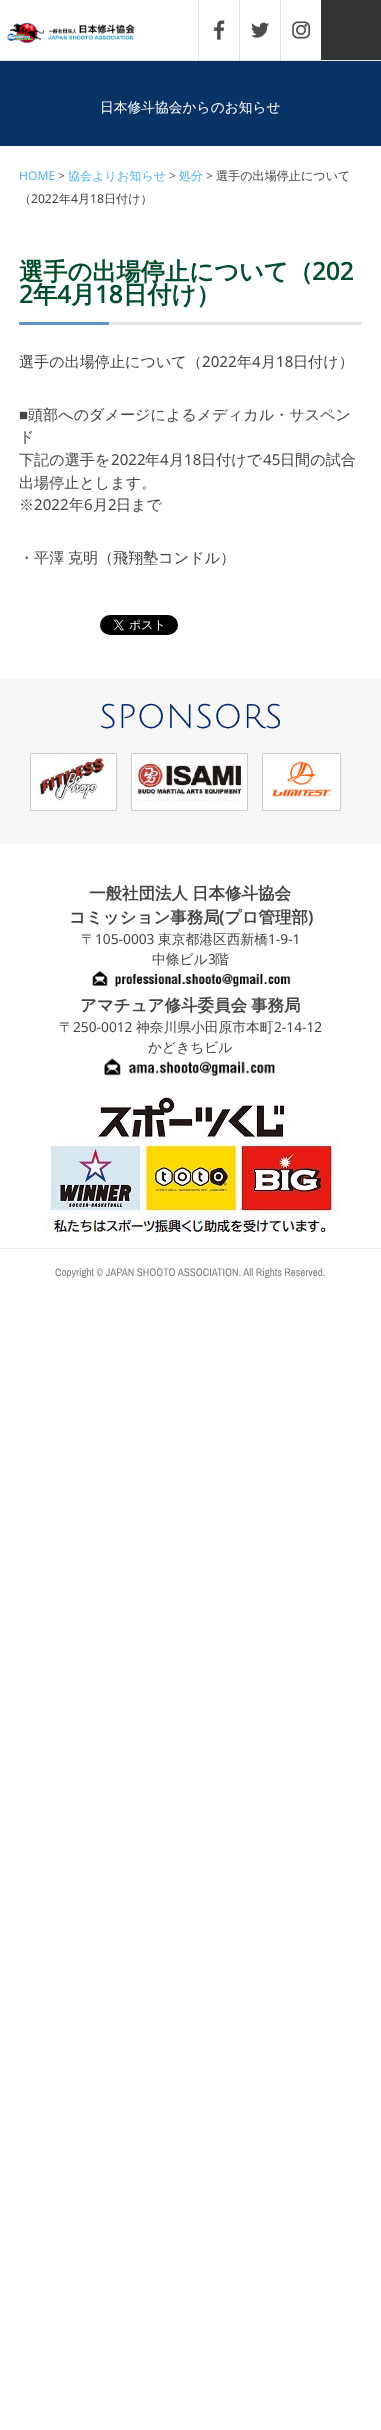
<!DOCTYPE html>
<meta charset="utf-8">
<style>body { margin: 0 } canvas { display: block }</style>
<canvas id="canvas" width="381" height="2430"></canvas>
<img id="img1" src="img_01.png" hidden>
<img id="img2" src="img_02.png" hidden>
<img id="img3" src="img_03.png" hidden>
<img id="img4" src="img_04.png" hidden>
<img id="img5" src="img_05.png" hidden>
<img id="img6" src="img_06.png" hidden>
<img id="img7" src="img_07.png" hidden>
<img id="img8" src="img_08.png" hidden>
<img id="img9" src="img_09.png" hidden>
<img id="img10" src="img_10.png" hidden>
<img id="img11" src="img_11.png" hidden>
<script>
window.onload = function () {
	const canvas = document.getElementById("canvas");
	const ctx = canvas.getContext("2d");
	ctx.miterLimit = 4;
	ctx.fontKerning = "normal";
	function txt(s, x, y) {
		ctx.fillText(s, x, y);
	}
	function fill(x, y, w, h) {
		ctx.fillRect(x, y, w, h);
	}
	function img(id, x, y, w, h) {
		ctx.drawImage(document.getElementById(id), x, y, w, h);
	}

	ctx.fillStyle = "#FFFFFF";
	fill(0, 0, 381, 2430);
	img("img1", 7, 22, 128, 22);
	img("img2", 214, 20, 11, 20);
	ctx.fillStyle = "#E3E3E3";
	fill(198, 0, 1, 60);
	img("img3", 251, 22, 18, 16);
	fill(239, 0, 1, 60);
	img("img4", 292, 21, 18, 18);
	fill(280, 0, 1, 60);
	ctx.fillStyle = "#333333";
	fill(321, 0, 60, 60);
	ctx.fillStyle = "#E3E3E3";
	fill(0, 60, 381, 1);
	ctx.fillStyle = "#093364";
	fill(0, 61, 381, 85);
	ctx.fillStyle = "#E5E5E5";
	fill(109, 322, 253, 3);
	ctx.fillStyle = "#5E94CE";
	fill(19, 322, 90, 3);
	img("img5", 100, 615, 78, 20);
	ctx.fillStyle = "#F7F7F7";
	fill(0, 679, 381, 165);
	ctx.fillStyle = "#FFFFFF";
	ctx.beginPath();
	ctx.rect(30.5, 753.5, 86, 57);
	ctx.fill();
	ctx.strokeStyle = "#CCCCCC";
	ctx.stroke();
	img("img6", 35, 757, 71, 44);
	ctx.beginPath();
	ctx.rect(131.5, 753.5, 116, 57);
	ctx.fill();
	ctx.stroke();
	img("img7", 135, 757, 110, 44);
	ctx.beginPath();
	ctx.rect(262.5, 753.5, 78, 57);
	ctx.fill();
	ctx.stroke();
	img("img8", 272, 761, 59, 36);
	img("img9", 92, 971, 199, 16);
	img("img10", 104, 1058, 171, 19);
	img("img11", 44, 1096, 297, 144);
	ctx.fillStyle = "#EBEBEB";
	fill(0, 1248, 381, 1);
	ctx.font = "500 13.75px WenQuanYi Zen Hei";
	ctx.fillStyle = "#FFFFFF";
	txt("日本修斗協会からのお知らせ", 100, 112);
	ctx.font = "12.1px Noto Sans";
	ctx.fillStyle = "#52B5EE";
	txt("HOME", 19, 180);
	ctx.fillStyle = "#555555";
	txt(">", 58, 180);
	ctx.font = "500 12.1px WenQuanYi Zen Hei";
	ctx.fillStyle = "#52B5EE";
	txt("協会よりお知らせ", 68, 180);
	ctx.font = "12.1px Noto Sans";
	ctx.fillStyle = "#555555";
	txt(">", 169, 180);
	ctx.font = "500 12.1px WenQuanYi Zen Hei";
	ctx.fillStyle = "#52B5EE";
	txt("処分", 179, 180);
	ctx.font = "12.1px Noto Sans";
	ctx.fillStyle = "#555555";
	txt(">", 206, 180);
	ctx.font = "500 12.1px WenQuanYi Zen Hei";
	ctx.fillStyle = "#444444";
	txt("選手の出場停止について", 216, 180);
	txt("（", 19, 203);
	ctx.font = "12.1px Noto Sans";
	txt("2022", 31, 203);
	ctx.font = "500 12.1px WenQuanYi Zen Hei";
	txt("年", 59, 203);
	ctx.font = "12.1px Noto Sans";
	txt("4", 71, 203);
	ctx.font = "500 12.1px WenQuanYi Zen Hei";
	txt("月", 78, 203);
	ctx.font = "12.1px Noto Sans";
	txt("18", 90, 203);
	ctx.font = "500 12.1px WenQuanYi Zen Hei";
	txt("日付け）", 104, 203);
	ctx.font = "bold 24.25px WenQuanYi Zen Hei";
	ctx.fillStyle = "#004E2B";
	txt("選手の出場停止について（", 19, 280);
	ctx.font = "bold 24.25px Noto Sans";
	txt("202", 312, 280);
	txt("2", 19, 303);
	ctx.font = "bold 24.25px WenQuanYi Zen Hei";
	txt("年", 33, 303);
	ctx.font = "bold 24.25px Noto Sans";
	txt("4", 57, 303);
	ctx.font = "bold 24.25px WenQuanYi Zen Hei";
	txt("月", 71, 303);
	ctx.font = "bold 24.25px Noto Sans";
	txt("18", 95, 303);
	ctx.font = "bold 24.25px WenQuanYi Zen Hei";
	txt("日付け）", 123, 303);
	ctx.font = "500 15.1px WenQuanYi Zen Hei";
	ctx.fillStyle = "#444444";
	txt("選手の出場停止について（", 19, 367);
	ctx.font = "15.1px Noto Sans";
	txt("2022", 202, 367);
	ctx.font = "500 15.1px WenQuanYi Zen Hei";
	txt("年", 237, 367);
	ctx.font = "15.1px Noto Sans";
	txt("4", 252, 367);
	ctx.font = "500 15.1px WenQuanYi Zen Hei";
	txt("月", 261, 367);
	ctx.font = "15.1px Noto Sans";
	txt("18", 276, 367);
	ctx.font = "500 15.1px WenQuanYi Zen Hei";
	txt("日付け）", 293, 367);
	ctx.font = "15.1px Liberation Sans";
	txt("■", 19, 420);
	ctx.font = "500 15.1px WenQuanYi Zen Hei";
	txt("頭部へのダメージによるメディカル・サスペン", 28, 420);
	txt("ド", 19, 442);
	txt("下記の選手を", 19, 465);
	ctx.font = "15.1px Noto Sans";
	txt("2022", 111, 465);
	ctx.font = "500 15.1px WenQuanYi Zen Hei";
	txt("年", 145, 465);
	ctx.font = "15.1px Noto Sans";
	txt("4", 160, 465);
	ctx.font = "500 15.1px WenQuanYi Zen Hei";
	txt("月", 169, 465);
	ctx.font = "15.1px Noto Sans";
	txt("18", 184, 465);
	ctx.font = "500 15.1px WenQuanYi Zen Hei";
	txt("日付けで", 201, 465);
	ctx.font = "15.1px Noto Sans";
	txt("45", 263, 465);
	ctx.font = "500 15.1px WenQuanYi Zen Hei";
	txt("日間の試合", 280, 465);
	txt("出場停止とします。", 19, 488);
	txt("※", 19, 510);
	ctx.font = "15.1px Noto Sans";
	txt("2022", 34, 510);
	ctx.font = "500 15.1px WenQuanYi Zen Hei";
	txt("年", 69, 510);
	ctx.font = "15.1px Noto Sans";
	txt("6", 84, 510);
	ctx.font = "500 15.1px WenQuanYi Zen Hei";
	txt("月", 93, 510);
	ctx.font = "15.1px Noto Sans";
	txt("2", 108, 510);
	ctx.font = "500 15.1px WenQuanYi Zen Hei";
	txt("日まで", 116, 510);
	ctx.wordSpacing = "-1px";
	txt("・平澤 克明（飛翔塾コンドル）", 19, 563);
	ctx.wordSpacing = "0px";
	ctx.font = "33.25px Julius Sans One";
	ctx.fillStyle = "#002574";
	txt("SPONSORS", 99, 728);
	ctx.wordSpacing = "-1px";
	ctx.font = "bold 16.5px WenQuanYi Zen Hei";
	ctx.fillStyle = "#444444";
	txt("一般社団法人 日本修斗協会", 89, 899);
	ctx.wordSpacing = "0px";
	txt("コミッション事務局 プロ管理部", 69, 923);
	ctx.font = "bold 16.5px Noto Sans";
	txt("(", 219, 923);
	txt(")", 308, 923);
	ctx.font = "500 13.75px WenQuanYi Zen Hei";
	txt("〒", 81, 944);
	ctx.font = "13.75px Noto Sans";
	txt("105-0003", 95, 944);
	ctx.font = "500 13.75px WenQuanYi Zen Hei";
	txt("東京都港区西新橋", 158, 944);
	ctx.font = "13.75px Noto Sans";
	txt("1-9-1", 268, 944);
	ctx.font = "500 13.75px WenQuanYi Zen Hei";
	txt("中條ビル", 152, 964);
	ctx.font = "13.75px Noto Sans";
	txt("3", 208, 964);
	ctx.font = "500 13.75px WenQuanYi Zen Hei";
	txt("階", 215, 964);
	ctx.wordSpacing = "-1px";
	ctx.font = "bold 16.5px WenQuanYi Zen Hei";
	txt("アマチュア修斗委員会 事務局", 80, 1011);
	ctx.wordSpacing = "0px";
	ctx.font = "500 13.75px WenQuanYi Zen Hei";
	txt("〒", 59, 1032);
	ctx.font = "13.75px Noto Sans";
	txt("250-0012", 73, 1032);
	ctx.font = "500 13.75px WenQuanYi Zen Hei";
	txt("神奈川県小田原市本町", 136, 1032);
	ctx.font = "13.75px Noto Sans";
	txt("2-14-12", 274, 1032);
	ctx.font = "500 13.75px WenQuanYi Zen Hei";
	txt("かどきちビル", 148, 1052);
	ctx.font = "11px Archivo Narrow";
	ctx.fillStyle = "#808080";
	txt("Copyright © JAPAN SHOOTO ASSOCIATION. All Rights Reserved.", 55, 1276);
};
</script>
